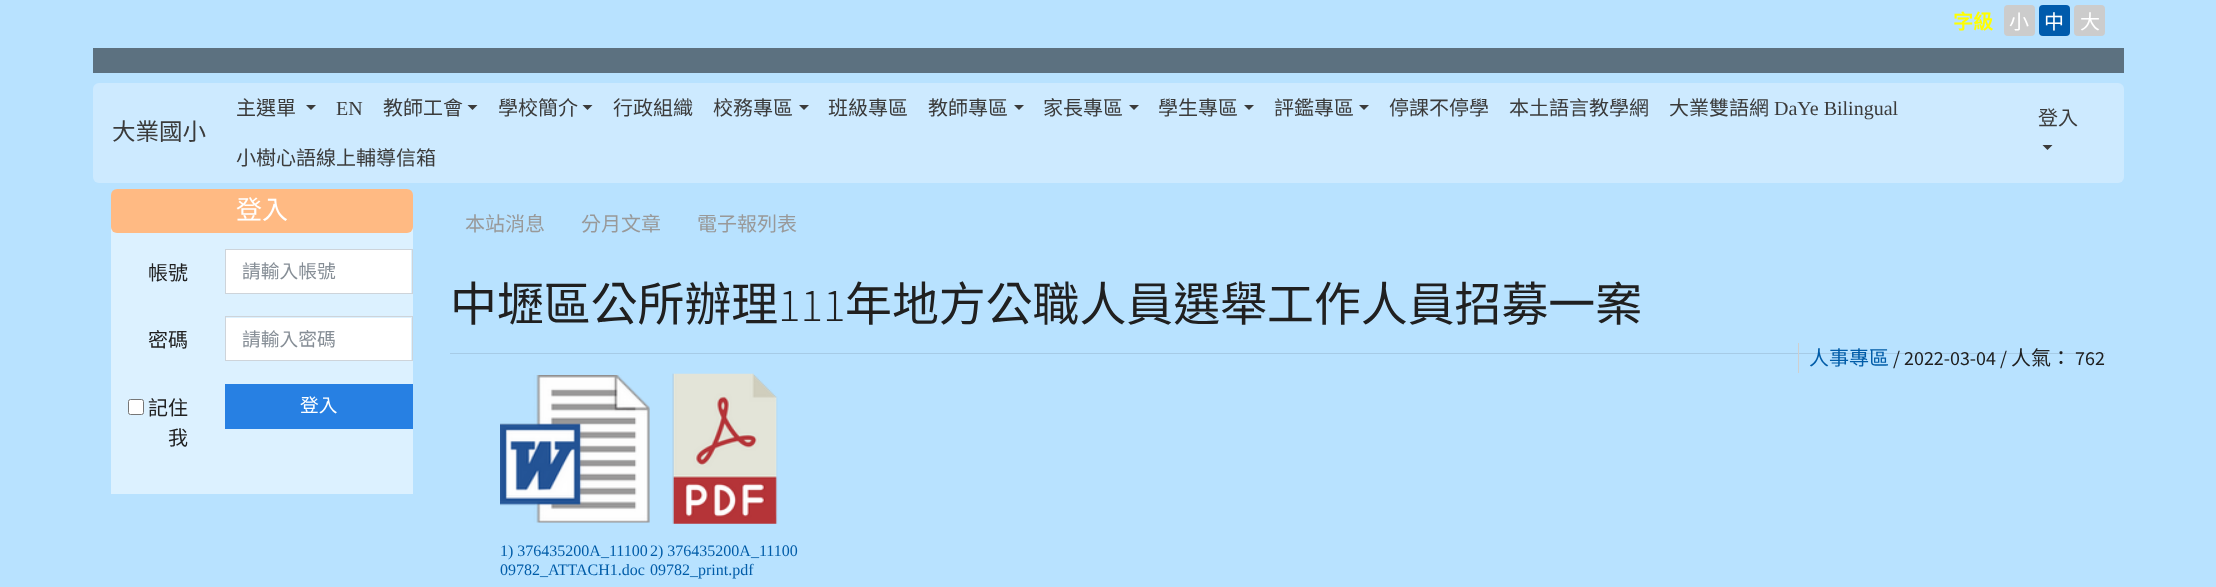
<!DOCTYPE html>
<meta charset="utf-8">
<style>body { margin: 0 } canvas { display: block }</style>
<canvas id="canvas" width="2216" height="587"></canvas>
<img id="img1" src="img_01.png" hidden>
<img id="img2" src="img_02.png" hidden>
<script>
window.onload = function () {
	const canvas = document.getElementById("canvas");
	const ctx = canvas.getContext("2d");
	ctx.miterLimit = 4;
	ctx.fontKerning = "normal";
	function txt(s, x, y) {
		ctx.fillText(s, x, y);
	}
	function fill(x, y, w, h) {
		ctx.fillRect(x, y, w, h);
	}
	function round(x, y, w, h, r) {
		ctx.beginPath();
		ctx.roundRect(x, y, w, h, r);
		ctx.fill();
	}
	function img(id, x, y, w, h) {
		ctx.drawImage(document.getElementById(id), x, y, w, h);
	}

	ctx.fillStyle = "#B8E2FF";
	fill(0, 0, 2216, 587);
	ctx.fillStyle = "#CCCCCC";
	round(2004, 5, 31, 31, 4);
	ctx.fillStyle = "#005BAC";
	round(2039, 5, 31, 31, 4);
	ctx.fillStyle = "#CCCCCC";
	round(2074, 5, 31, 31, 4);
	ctx.fillStyle = "#5C7180";
	fill(93, 48, 2031, 25);
	ctx.fillStyle = "#CDEAFF";
	round(93, 83, 2031, 100, 6);
	ctx.fillStyle = "#3B3B3B";
	ctx.beginPath();
	ctx.moveTo(306, 105);
	ctx.lineTo(316, 105);
	ctx.lineTo(311, 110);
	ctx.closePath();
	ctx.fill();
	ctx.beginPath();
	ctx.moveTo(467.5, 105);
	ctx.lineTo(477.5, 105);
	ctx.lineTo(472.5, 110);
	ctx.closePath();
	ctx.fill();
	ctx.beginPath();
	ctx.moveTo(582.5, 105);
	ctx.lineTo(592.5, 105);
	ctx.lineTo(587.5, 110);
	ctx.closePath();
	ctx.fill();
	ctx.beginPath();
	ctx.moveTo(799, 105);
	ctx.lineTo(809, 105);
	ctx.lineTo(804, 110);
	ctx.closePath();
	ctx.fill();
	ctx.beginPath();
	ctx.moveTo(1014, 105);
	ctx.lineTo(1024, 105);
	ctx.lineTo(1019, 110);
	ctx.closePath();
	ctx.fill();
	ctx.beginPath();
	ctx.moveTo(1129, 105);
	ctx.lineTo(1139, 105);
	ctx.lineTo(1134, 110);
	ctx.closePath();
	ctx.fill();
	ctx.beginPath();
	ctx.moveTo(1244, 105);
	ctx.lineTo(1254, 105);
	ctx.lineTo(1249, 110);
	ctx.closePath();
	ctx.fill();
	ctx.beginPath();
	ctx.moveTo(1359, 105);
	ctx.lineTo(1369, 105);
	ctx.lineTo(1364, 110);
	ctx.closePath();
	ctx.fill();
	ctx.beginPath();
	ctx.moveTo(2042.5, 145);
	ctx.lineTo(2052.5, 145);
	ctx.lineTo(2047.5, 150);
	ctx.closePath();
	ctx.fill();
	ctx.fillStyle = "#DCF1FF";
	ctx.beginPath();
	ctx.roundRect(111, 189, 302, 305, [8, 8, 0, 0]);
	ctx.fill();
	ctx.fillStyle = "#FFBA83";
	round(111, 189, 302, 44, 6);
	ctx.fillStyle = "#FFFFFF";
	fill(226, 250, 185, 43);
	ctx.strokeStyle = "#CED4DA";
	ctx.strokeRect(225.5, 249.5, 187, 44);
	fill(226, 318, 185, 42);
	ctx.strokeRect(225.5, 316.5, 187, 44);
	ctx.beginPath();
	ctx.roundRect(128.5, 399.5, 15, 15, 2);
	ctx.fill();
	ctx.strokeStyle = "#767676";
	ctx.stroke();
	ctx.fillStyle = "#2780E3";
	fill(225, 384, 188, 45);
	ctx.fillStyle = "#A6CBE6";
	fill(450, 353, 1655, 1);
	ctx.fillStyle = "#CFCFCF";
	fill(1798, 343, 1, 30);
	img("img1", 500, 375, 150, 148);
	img("img2", 672, 373, 106, 151);
	ctx.font = "bold 20px Noto Sans CJK TC";
	ctx.fillStyle = "#FFFF00";
	txt("字級", 1953, 29);
	ctx.font = "20px Noto Sans CJK TC";
	ctx.fillStyle = "#FFFFFF";
	txt("小", 2009, 29);
	txt("中", 2044, 29);
	txt("大", 2080, 29);
	ctx.font = "23.5px Noto Sans CJK TC";
	ctx.fillStyle = "#3B3B3B";
	txt("大業國小", 112, 140);
	ctx.font = "20px Noto Sans CJK TC";
	txt("主選單", 236, 115);
	ctx.font = "20px Liberation Serif";
	txt("EN", 336, 115);
	ctx.font = "20px Noto Sans CJK TC";
	txt("教師工會", 383, 115);
	txt("學校簡介", 498, 115);
	txt("行政組織", 613, 115);
	txt("校務專區", 713, 115);
	txt("班級專區", 828, 115);
	txt("教師專區", 928, 115);
	txt("家長專區", 1043, 115);
	txt("學生專區", 1158, 115);
	txt("評鑑專區", 1274, 115);
	txt("停課不停學", 1389, 115);
	txt("本土語言教學網", 1509, 115);
	txt("大業雙語網", 1669, 115);
	ctx.font = "20px Liberation Serif";
	txt("DaYe Bilingual", 1774, 115);
	ctx.font = "20px Noto Sans CJK TC";
	txt("小樹心語線上輔導信箱", 236, 165);
	txt("登入", 2038, 125);
	ctx.font = "26px Noto Sans CJK TC";
	ctx.fillStyle = "#FFFFFF";
	txt("登入", 236, 219);
	ctx.font = "20px Noto Sans CJK TC";
	ctx.fillStyle = "#202020";
	txt("帳號", 148, 280);
	ctx.font = "18.75px Noto Sans CJK TC";
	ctx.fillStyle = "#868E96";
	txt("請輸入帳號", 242, 278);
	ctx.font = "20px Noto Sans CJK TC";
	ctx.fillStyle = "#202020";
	txt("密碼", 148, 347);
	ctx.font = "18.75px Noto Sans CJK TC";
	ctx.fillStyle = "#868E96";
	txt("請輸入密碼", 242, 346);
	ctx.font = "20px Noto Sans CJK TC";
	ctx.fillStyle = "#202020";
	txt("記住", 148, 415);
	txt("我", 168, 445);
	ctx.font = "18.75px Noto Sans CJK TC";
	ctx.fillStyle = "#FFFFFF";
	txt("登入", 300, 412);
	ctx.font = "20px Noto Sans CJK TC";
	ctx.fillStyle = "#999999";
	txt("本站消息", 465, 231);
	txt("分月文章", 581, 231);
	txt("電子報列表", 697, 231);
	ctx.font = "46.9px Noto Sans CJK TC";
	ctx.fillStyle = "#202020";
	txt("中壢區公所辦理", 450, 321);
	ctx.font = "300 46.9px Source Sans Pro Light";
	txt("111", 778, 321);
	ctx.font = "46.9px Noto Sans CJK TC";
	txt("年地方公職人員選舉工作人員招募一案", 845, 321);
	ctx.font = "20px Noto Sans CJK TC";
	ctx.fillStyle = "#005CA8";
	txt("人事專區", 1809, 365);
	ctx.font = "20px Source Sans Pro";
	ctx.fillStyle = "#202020";
	txt("/ 2022-03-04 /", 1893, 365);
	ctx.font = "20px Noto Sans CJK TC";
	txt("人氣：", 2011, 365);
	ctx.font = "20px Source Sans Pro";
	txt("762", 2075, 365);
	ctx.font = "16px Liberation Serif";
	ctx.fillStyle = "#005CA8";
	txt("1) 376435200A_11100", 500, 556);
	txt("09782_ATTACH1.doc", 500, 575);
	txt("2) 376435200A_11100", 650, 556);
	txt("09782_print.pdf", 650, 575);
};
</script>
